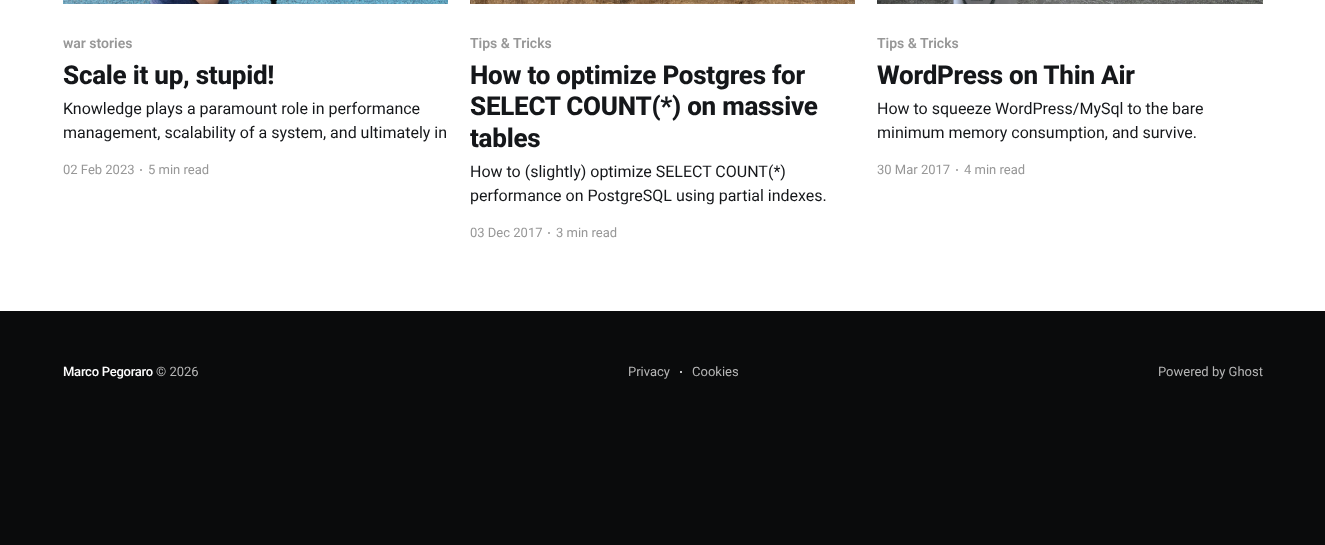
<!DOCTYPE html>
<meta charset="utf-8">
<style>body { margin: 0 } canvas { display: block }</style>
<canvas id="canvas" width="1325" height="545"></canvas>
<img id="img1" src="img_01.png" hidden>
<img id="img2" src="img_02.png" hidden>
<img id="img3" src="img_03.png" hidden>
<script>
window.onload = function () {
	const canvas = document.getElementById("canvas");
	const ctx = canvas.getContext("2d");
	ctx.miterLimit = 4;
	ctx.fontKerning = "normal";
	function txt(s, x, y) {
		ctx.fillText(s, x, y);
	}
	function fill(x, y, w, h) {
		ctx.fillRect(x, y, w, h);
	}
	function img(id, x, y, w, h) {
		ctx.drawImage(document.getElementById(id), x, y, w, h);
	}

	ctx.fillStyle = "#FFFFFF";
	fill(0, 0, 1325, 545);
	img("img1", 63, 0, 385, 4);
	ctx.fillStyle = "#979797";
	ctx.beginPath();
	ctx.arc(141, 170, 1, 0, Math.PI * 2);
	ctx.fill();
	img("img2", 470, 0, 385, 4);
	ctx.beginPath();
	ctx.arc(549, 233, 1, 0, Math.PI * 2);
	ctx.fill();
	img("img3", 877, 0, 386, 4);
	ctx.beginPath();
	ctx.arc(957, 170, 1, 0, Math.PI * 2);
	ctx.fill();
	ctx.fillStyle = "#0A0B0C";
	fill(0, 311, 1325, 234);
	ctx.fillStyle = "#FFFFFF";
	ctx.beginPath();
	ctx.arc(681, 372, 1, 0, Math.PI * 2);
	ctx.fill();
	ctx.font = "600 14px Roboto";
	ctx.fillStyle = "#979797";
	txt("war stories", 63, 48);
	ctx.letterSpacing = "-0.25px";
	ctx.font = "800 26px Roboto";
	ctx.fillStyle = "#15171A";
	txt("Scale it up, stupid!", 63, 84);
	ctx.letterSpacing = "0px";
	ctx.font = "16px Roboto";
	txt("Knowledge plays a paramount role in performance", 63, 114);
	txt("management, scalability of a system, and ultimately in", 63, 138);
	ctx.font = "13px Roboto";
	ctx.fillStyle = "#979797";
	txt("02 Feb 2023", 63, 174);
	txt("5 min read", 148, 174);
	ctx.font = "600 14px Roboto";
	txt("Tips & Tricks", 470, 48);
	ctx.letterSpacing = "-0.25px";
	ctx.font = "800 26px Roboto";
	ctx.fillStyle = "#15171A";
	txt("How to optimize Postgres for", 470, 84);
	txt("SELECT COUNT(*) on massive", 470, 115);
	txt("tables", 470, 147);
	ctx.letterSpacing = "0px";
	ctx.font = "16px Roboto";
	txt("How to (slightly) optimize SELECT COUNT(*)", 470, 177);
	txt("performance on PostgreSQL using partial indexes.", 470, 201);
	ctx.font = "13px Roboto";
	ctx.fillStyle = "#979797";
	txt("03 Dec 2017", 470, 237);
	txt("3 min read", 556, 237);
	ctx.font = "600 14px Roboto";
	txt("Tips & Tricks", 877, 48);
	ctx.letterSpacing = "-0.25px";
	ctx.font = "800 26px Roboto";
	ctx.fillStyle = "#15171A";
	txt("WordPress on Thin Air", 877, 84);
	ctx.letterSpacing = "0px";
	ctx.font = "16px Roboto";
	txt("How to squeeze WordPress/MySql to the bare", 877, 114);
	txt("minimum memory consumption, and survive.", 877, 138);
	ctx.font = "13px Roboto";
	ctx.fillStyle = "#979797";
	txt("30 Mar 2017", 877, 174);
	txt("4 min read", 964, 174);
	ctx.letterSpacing = "-0.25px";
	ctx.font = "500 13px Roboto";
	ctx.fillStyle = "#FFFFFF";
	txt("Marco Pegoraro", 63, 376);
	ctx.letterSpacing = "0px";
	ctx.font = "13px Roboto";
	ctx.fillStyle = "#B6B6B6";
	txt("© 2026", 156, 376);
	txt("Privacy", 628, 376);
	txt("Cookies", 692, 376);
	txt("Powered by Ghost", 1158, 376);
};
</script>
